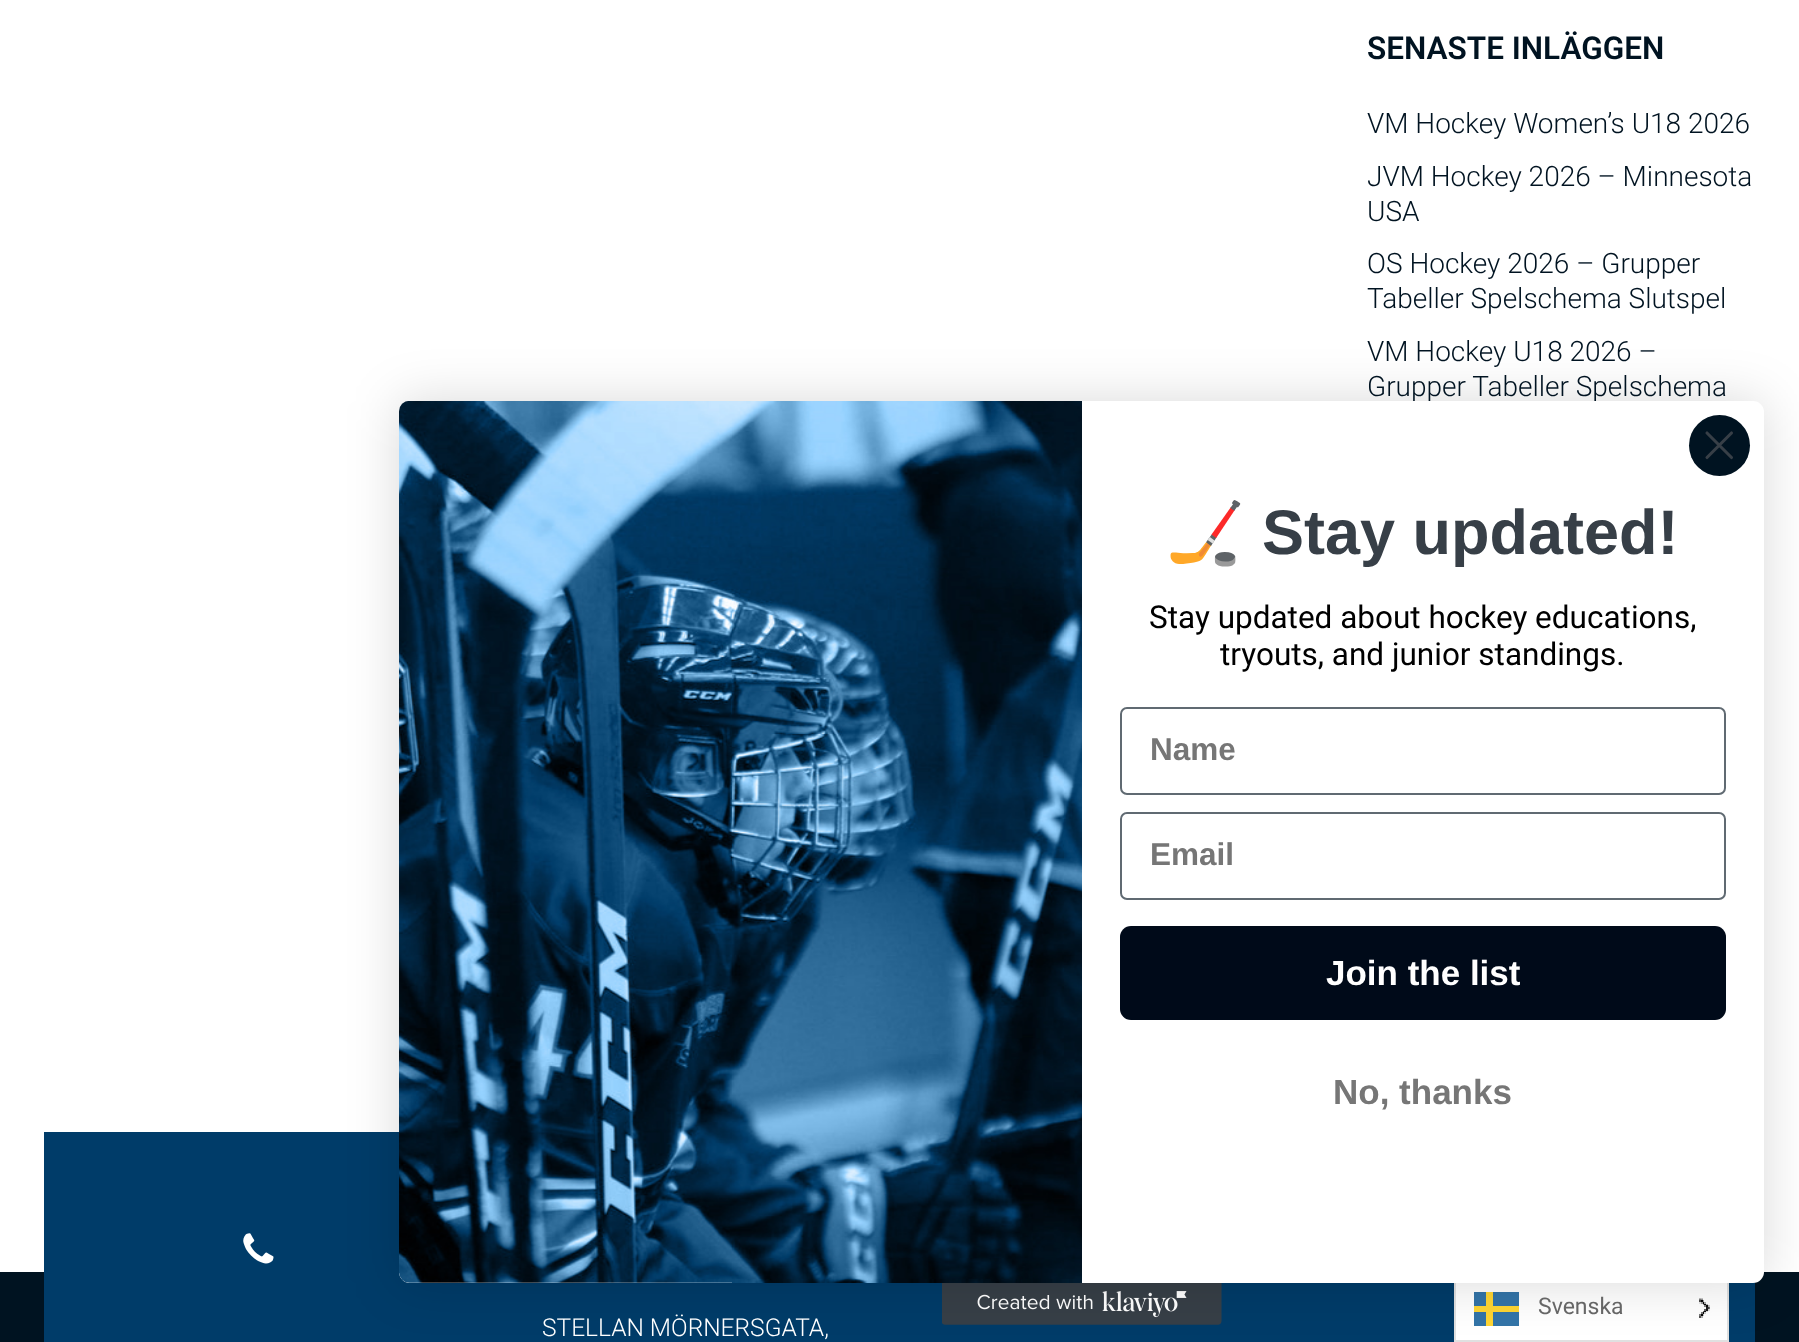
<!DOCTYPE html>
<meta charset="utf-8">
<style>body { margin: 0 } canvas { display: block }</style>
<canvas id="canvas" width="1799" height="1342"></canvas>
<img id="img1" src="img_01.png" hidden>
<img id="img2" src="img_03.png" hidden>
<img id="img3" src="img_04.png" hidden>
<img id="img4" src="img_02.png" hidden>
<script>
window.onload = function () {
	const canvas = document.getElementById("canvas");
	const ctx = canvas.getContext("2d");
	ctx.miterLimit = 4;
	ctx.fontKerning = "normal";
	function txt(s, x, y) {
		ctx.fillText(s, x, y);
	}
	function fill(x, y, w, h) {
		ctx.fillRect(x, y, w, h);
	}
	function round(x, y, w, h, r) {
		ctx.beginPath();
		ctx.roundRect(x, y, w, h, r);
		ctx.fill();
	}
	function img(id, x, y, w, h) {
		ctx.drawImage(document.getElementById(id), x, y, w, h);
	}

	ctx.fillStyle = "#FFFFFF";
	fill(0, 0, 1799, 1342);
	ctx.fillStyle = "#001321";
	fill(0, 1272, 1799, 70);
	ctx.fillStyle = "#003C69";
	fill(44, 1132, 1711, 210);
	img("img1", 243, 1233, 31, 31);
	img("img2", 942, 1283, 280, 42);
	ctx.fillStyle = "#FFFFFF";
	fill(1456, 1283, 271, 57);
	ctx.strokeStyle = "#E0E0E0";
	ctx.lineWidth = 2;
	ctx.strokeRect(1455, 1275, 273, 66);
	ctx.fillStyle = "#005293";
	fill(1474, 1292, 45, 34);
	ctx.save();
	ctx.beginPath();
	ctx.rect(1474, 1292, 45, 35);
	ctx.clip();
	ctx.fillStyle = "#FECB00";
	ctx.beginPath();
	ctx.moveTo(1486, 1292);
	ctx.lineTo(1486, 1306);
	ctx.lineTo(1474, 1306);
	ctx.lineTo(1474, 1312);
	ctx.lineTo(1486, 1312);
	ctx.lineTo(1486, 1326);
	ctx.lineTo(1493, 1326);
	ctx.lineTo(1493, 1312);
	ctx.lineTo(1520, 1312);
	ctx.lineTo(1520, 1306);
	ctx.lineTo(1493, 1306);
	ctx.lineTo(1493, 1292);
	ctx.closePath();
	ctx.fill();
	ctx.restore();
	ctx.fillStyle = "rgba(255, 255, 255, 0.2)";
	fill(1474, 1292, 45, 34);
	img("img3", 1699, 1298, 11, 20);
	ctx.fillStyle = "rgba(0, 0, 0, 0.15)";
	ctx.filter = "blur(26px)";
	ctx.beginPath();
	ctx.roundRect(399, 401, 1365, 882, 11);
	ctx.fill();
	ctx.filter = "none";
	ctx.font = "600 31.5px Roboto";
	ctx.fillStyle = "#001321";
	txt("SENASTE INLÄGGEN", 1367, 59);
	ctx.font = "300 28px Roboto";
	txt("VM Hockey Women’s U18 2026", 1367, 133);
	txt("JVM Hockey 2026 – Minnesota", 1367, 186);
	txt("USA", 1367, 221);
	txt("OS Hockey 2026 – Grupper", 1367, 273);
	txt("Tabeller Spelschema Slutspel", 1367, 308);
	txt("VM Hockey U18 2026 –", 1367, 361);
	txt("Grupper Tabeller Spelschema", 1367, 396);
	ctx.font = "300 24.5px Roboto";
	ctx.fillStyle = "#FFFFFF";
	txt("STELLAN MÖRNERSGATA,", 542, 1336);
	round(399, 401, 1365, 882, 11);
	ctx.fillStyle = "#001321";
	ctx.beginPath();
	ctx.arc(1719.5, 445.5, 30.5, 0, Math.PI * 2);
	ctx.fill();
	ctx.beginPath();
	ctx.moveTo(1707, 433);
	ctx.lineTo(1731.5, 457.5);
	ctx.moveTo(1707, 457.5);
	ctx.lineTo(1731.5, 433);
	ctx.closePath();
	ctx.strokeStyle = "#373F47";
	ctx.lineWidth = 3.1;
	ctx.lineCap = "round";
	ctx.lineJoin = "round";
	ctx.stroke();
	img("img4", 399, 401, 683, 882);
	ctx.font = "bold 63px Noto Color Emoji";
	ctx.fillStyle = "#373F47";
	txt("🏒", 1166, 554);
	ctx.font = "bold 63px Liberation Sans";
	txt("Stay updated!", 1262, 554);
	ctx.font = "31.5px Roboto";
	ctx.fillStyle = "#000000";
	txt("Stay updated about hockey educations,", 1149, 628);
	txt("tryouts, and junior standings.", 1220, 665);
	ctx.beginPath();
	ctx.roundRect(1121, 708, 604, 86, 6);
	ctx.strokeStyle = "#606A72";
	ctx.lineWidth = 2;
	ctx.lineJoin = "miter";
	ctx.stroke();
	ctx.font = "bold 31.5px Liberation Sans";
	ctx.fillStyle = "#767676";
	txt("Name", 1150, 760);
	ctx.beginPath();
	ctx.roundRect(1121, 813, 604, 86, 6);
	ctx.stroke();
	txt("Email", 1150, 865);
	ctx.fillStyle = "#000A19";
	round(1120, 926, 606, 94, 11);
	ctx.font = "bold 35px Liberation Sans";
	ctx.fillStyle = "#FFFFFF";
	txt("Join the list", 1326, 985);
	ctx.fillStyle = "#767676";
	txt("No, thanks", 1333, 1104);
	ctx.font = "23px Roboto";
	ctx.fillStyle = "#666666";
	txt("Svenska", 1538, 1314);
};
</script>
